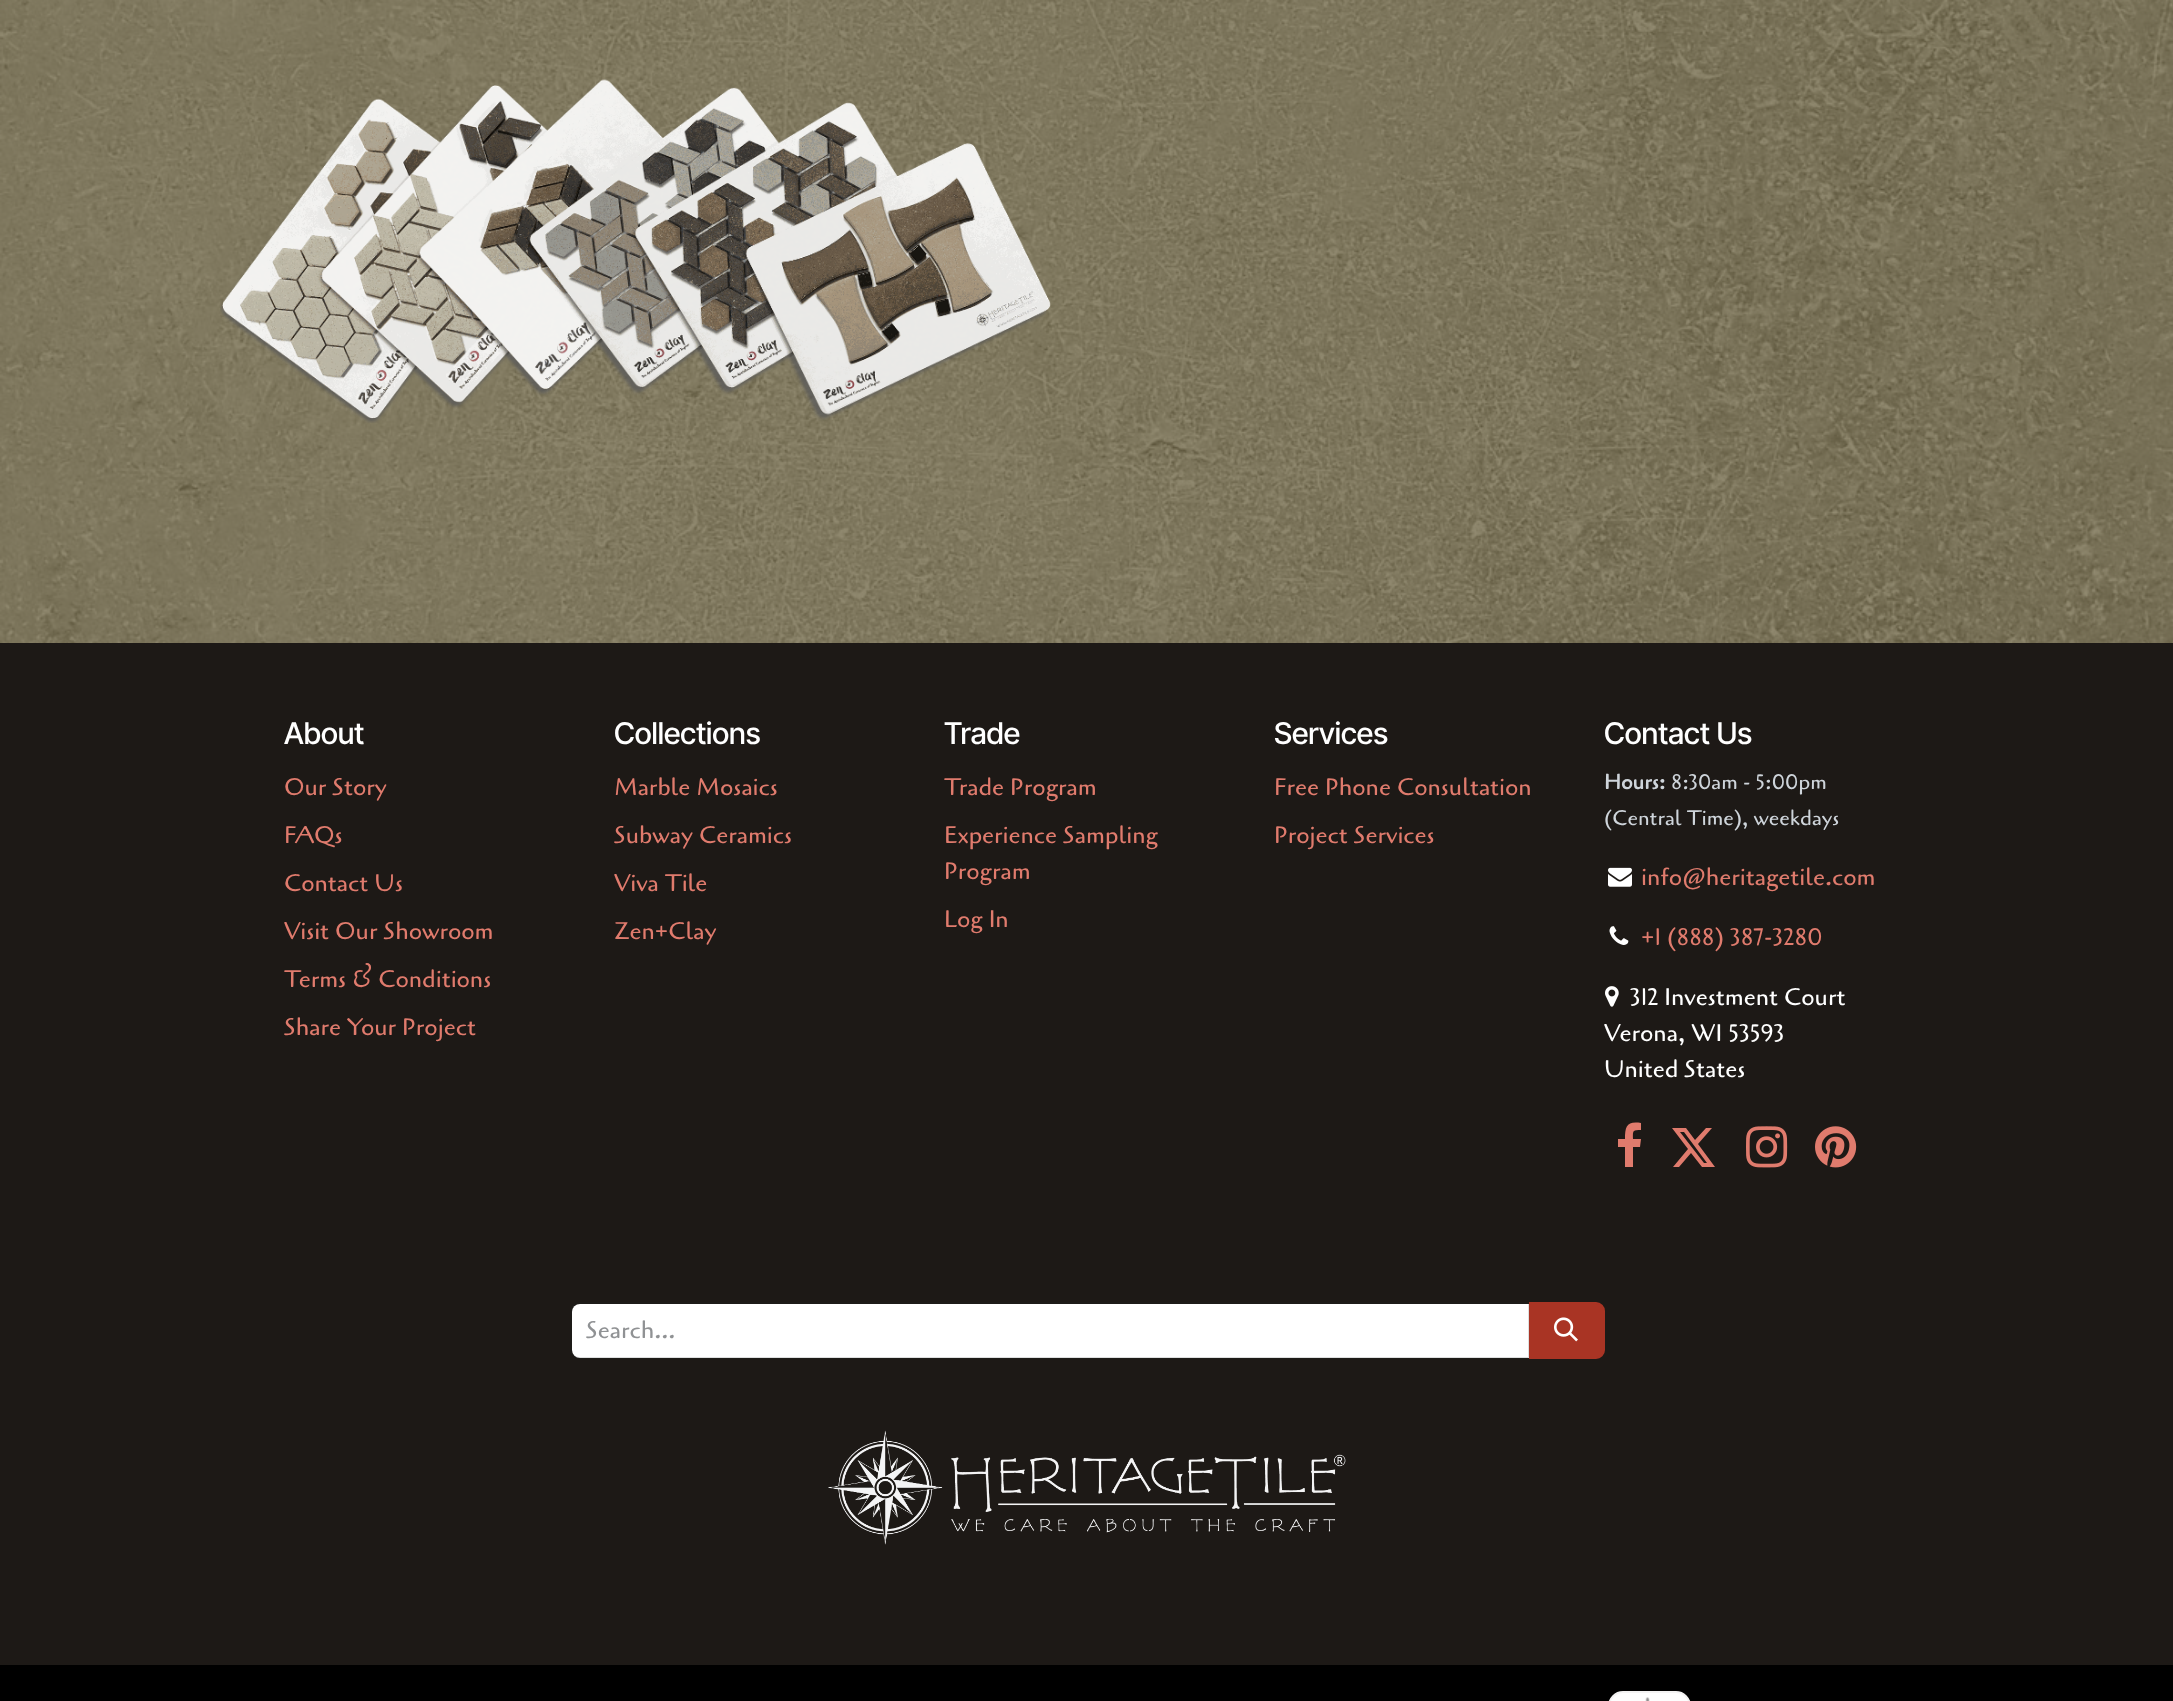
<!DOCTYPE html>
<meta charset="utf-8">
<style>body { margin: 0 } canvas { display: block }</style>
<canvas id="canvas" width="2173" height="1701"></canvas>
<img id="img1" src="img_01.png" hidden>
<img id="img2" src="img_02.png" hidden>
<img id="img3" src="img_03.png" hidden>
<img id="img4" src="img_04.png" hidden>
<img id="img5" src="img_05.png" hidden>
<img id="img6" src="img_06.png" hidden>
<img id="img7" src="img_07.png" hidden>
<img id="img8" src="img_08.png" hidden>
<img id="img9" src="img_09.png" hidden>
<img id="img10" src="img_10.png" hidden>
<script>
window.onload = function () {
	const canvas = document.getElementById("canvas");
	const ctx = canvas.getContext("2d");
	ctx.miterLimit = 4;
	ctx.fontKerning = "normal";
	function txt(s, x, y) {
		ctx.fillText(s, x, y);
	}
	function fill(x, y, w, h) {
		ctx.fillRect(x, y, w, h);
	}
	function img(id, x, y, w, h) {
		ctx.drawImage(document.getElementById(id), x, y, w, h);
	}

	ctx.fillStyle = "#1D1916";
	fill(0, 0, 2173, 1701);
	img("img1", 0, 0, 2173, 643);
	img("img2", 220, 79, 831, 344);
	img("img3", 1608, 867, 24, 20);
	img("img4", 1609, 926, 20, 19);
	img("img5", 1605, 986, 14, 21);
	ctx.fillStyle = "#E07B6D";
	ctx.beginPath();
	ctx.moveTo(1641, 1123);
	ctx.lineTo(1641, 1130);
	ctx.bezierCurveTo(1632, 1130, 1633, 1131, 1633, 1139);
	ctx.lineTo(1641, 1139);
	ctx.lineTo(1640, 1147);
	ctx.lineTo(1633, 1147);
	ctx.lineTo(1633, 1167);
	ctx.lineTo(1625, 1167);
	ctx.lineTo(1625, 1147);
	ctx.lineTo(1618, 1147);
	ctx.lineTo(1618, 1139);
	ctx.lineTo(1625, 1139);
	ctx.bezierCurveTo(1625, 1126, 1627, 1121, 1641, 1123);
	ctx.closePath();
	ctx.fill();
	ctx.beginPath();
	ctx.moveTo(1706, 1128);
	ctx.lineTo(1712, 1128);
	ctx.lineTo(1698, 1144);
	ctx.lineTo(1715, 1167);
	ctx.lineTo(1702, 1167);
	ctx.lineTo(1691, 1153);
	ctx.lineTo(1679, 1167);
	ctx.lineTo(1673, 1167);
	ctx.lineTo(1688, 1149);
	ctx.lineTo(1672, 1128);
	ctx.lineTo(1686, 1128);
	ctx.lineTo(1695, 1140);
	ctx.closePath();
	ctx.moveTo(1704, 1163);
	ctx.lineTo(1707, 1163);
	ctx.lineTo(1684, 1132);
	ctx.lineTo(1680, 1132);
	ctx.closePath();
	ctx.fill();
	img("img6", 1746, 1126, 42, 42);
	img("img7", 1815, 1126, 42, 42);
	ctx.fillStyle = "#FFFFFF";
	ctx.beginPath();
	ctx.roundRect(572, 1304, 957, 54, [8, 0, 0, 8]);
	ctx.fill();
	ctx.beginPath();
	ctx.roundRect(571, 1303, 958, 55, [8, 0, 0, 8]);
	ctx.strokeStyle = "rgba(33, 37, 41, 0.15)";
	ctx.lineWidth = 2;
	ctx.stroke();
	ctx.fillStyle = "#A93424";
	ctx.beginPath();
	ctx.roundRect(1530, 1303, 74, 55, [0, 8, 8, 0]);
	ctx.fill();
	ctx.strokeStyle = "#A93424";
	ctx.stroke();
	img("img8", 1554, 1317, 24, 25);
	img("img9", 828, 1430, 518, 115);
	ctx.fillStyle = "#000000";
	fill(0, 1665, 2173, 36);
	ctx.fillStyle = "#FEFEFE";
	ctx.beginPath();
	ctx.roundRect(1609, 1692, 81, 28, 17);
	ctx.fill();
	ctx.strokeStyle = "#F3F2F2";
	ctx.stroke();
	img("img10", 1645, 1697, 5, 4);
	ctx.font = "500 30px Inter Tight";
	ctx.fillStyle = "#FFFFFF";
	txt("About", 284, 744);
	ctx.font = "24px Cagliostro";
	ctx.fillStyle = "#E07B6D";
	txt("Our Story", 284, 795);
	txt("FAQs", 284, 843);
	txt("Contact Us", 284, 891);
	txt("Visit Our Showroom", 284, 939);
	txt("Terms & Conditions", 284, 987);
	txt("Share Your Project", 284, 1035);
	ctx.font = "500 30px Inter Tight";
	ctx.fillStyle = "#FFFFFF";
	txt("Collections", 614, 744);
	ctx.font = "24px Cagliostro";
	ctx.fillStyle = "#E07B6D";
	txt("Marble Mosaics", 614, 795);
	txt("Subway Ceramics", 614, 843);
	txt("Viva Tile", 614, 891);
	txt("Zen+Clay", 614, 939);
	ctx.font = "500 30px Inter Tight";
	ctx.fillStyle = "#FFFFFF";
	txt("Trade", 944, 744);
	ctx.font = "24px Cagliostro";
	ctx.fillStyle = "#E07B6D";
	txt("Trade Program", 944, 795);
	txt("Experience Sampling", 944, 843);
	txt("Program", 944, 879);
	txt("Log In", 944, 927);
	ctx.font = "500 30px Inter Tight";
	ctx.fillStyle = "#FFFFFF";
	txt("Services", 1274, 744);
	ctx.font = "24px Cagliostro";
	ctx.fillStyle = "#E07B6D";
	txt("Free Phone Consultation", 1274, 795);
	txt("Project Services", 1274, 843);
	ctx.font = "500 30px Inter Tight";
	ctx.fillStyle = "#FFFFFF";
	txt("Contact Us", 1604, 744);
	ctx.font = "bold 21px Cagliostro";
	ctx.fillStyle = "#CED4DA";
	txt("Hours:", 1604, 789);
	ctx.font = "21px Cagliostro";
	txt("8:30am - 5:00pm", 1671, 789);
	txt("(Central Time), weekdays", 1604, 825);
	ctx.font = "24px Cagliostro";
	ctx.fillStyle = "#E07B6D";
	txt("info@heritagetile.com", 1641, 885);
	txt("+1 (888) 387-3280", 1641, 945);
	ctx.fillStyle = "#FFFFFF";
	txt("312 Investment Court", 1630, 1005);
	txt("Verona, WI 53593", 1604, 1041);
	txt("United States", 1604, 1077);
	ctx.fillStyle = "#909294";
	txt("Search...", 586, 1338);
};
</script>
